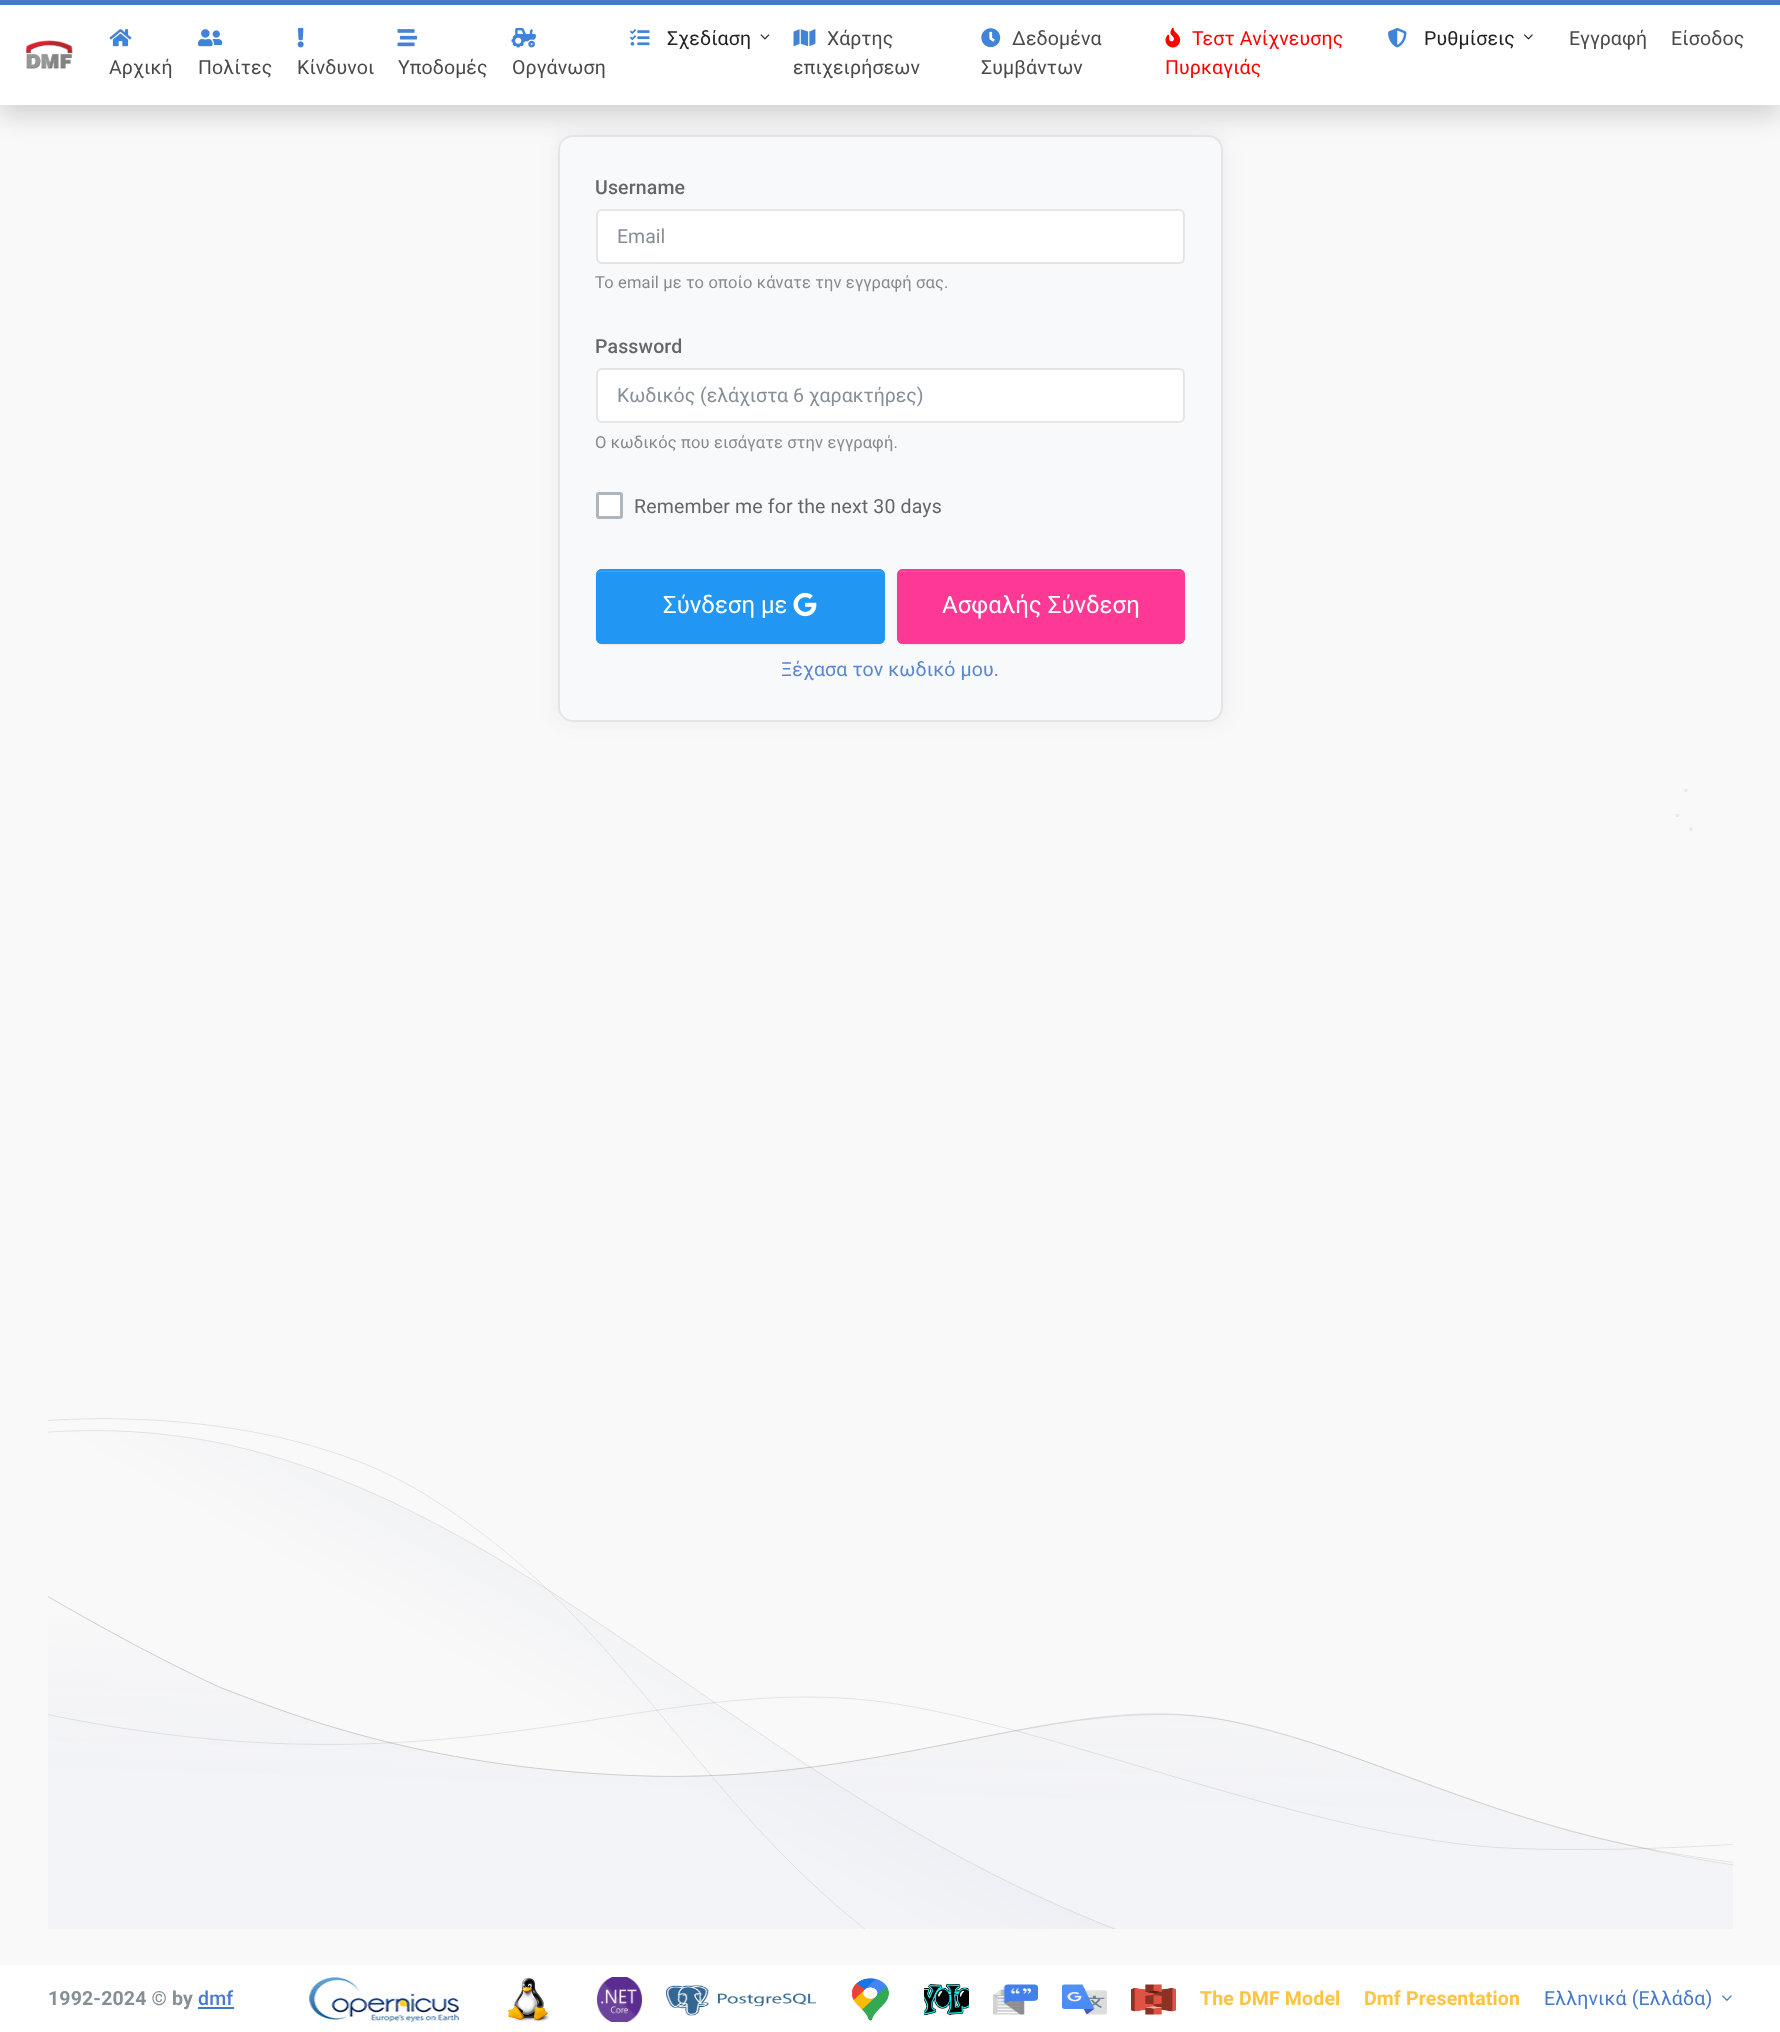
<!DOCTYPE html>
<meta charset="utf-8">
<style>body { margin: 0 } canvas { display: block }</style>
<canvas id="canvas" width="1780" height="2032"></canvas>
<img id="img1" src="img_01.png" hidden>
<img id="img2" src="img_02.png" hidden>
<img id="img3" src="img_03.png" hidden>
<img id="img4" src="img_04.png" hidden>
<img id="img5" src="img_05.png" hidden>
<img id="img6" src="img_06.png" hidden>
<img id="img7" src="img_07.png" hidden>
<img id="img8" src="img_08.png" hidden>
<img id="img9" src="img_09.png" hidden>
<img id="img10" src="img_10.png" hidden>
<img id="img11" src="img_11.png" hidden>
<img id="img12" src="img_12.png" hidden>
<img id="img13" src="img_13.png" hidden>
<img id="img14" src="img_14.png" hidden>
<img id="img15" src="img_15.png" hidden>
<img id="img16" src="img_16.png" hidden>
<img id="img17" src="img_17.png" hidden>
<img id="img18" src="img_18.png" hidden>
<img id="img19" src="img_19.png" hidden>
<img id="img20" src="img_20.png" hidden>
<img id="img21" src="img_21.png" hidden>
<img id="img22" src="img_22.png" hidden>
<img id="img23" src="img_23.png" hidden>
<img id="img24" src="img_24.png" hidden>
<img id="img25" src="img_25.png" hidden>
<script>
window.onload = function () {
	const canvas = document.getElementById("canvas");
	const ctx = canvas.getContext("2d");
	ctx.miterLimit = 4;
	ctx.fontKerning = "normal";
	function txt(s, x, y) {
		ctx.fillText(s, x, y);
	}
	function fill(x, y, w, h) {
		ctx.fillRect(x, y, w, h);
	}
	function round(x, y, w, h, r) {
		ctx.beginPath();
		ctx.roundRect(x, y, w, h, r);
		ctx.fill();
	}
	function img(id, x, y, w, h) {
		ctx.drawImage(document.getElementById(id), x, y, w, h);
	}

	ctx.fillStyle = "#F9F9F9";
	fill(0, 0, 1780, 2032);
	ctx.fillStyle = "rgba(74, 53, 107, 0.08)";
	ctx.filter = "blur(10px)";
	ctx.beginPath();
	ctx.roundRect(558, 135, 665, 587, 15);
	ctx.fill();
	ctx.filter = "none";
	ctx.fillStyle = "#F7F9FA";
	round(558, 135, 665, 587, 15);
	ctx.beginPath();
	ctx.roundRect(559, 136, 663, 585, 14);
	ctx.strokeStyle = "rgba(0, 0, 0, 0.08)";
	ctx.lineWidth = 2;
	ctx.stroke();
	ctx.fillStyle = "rgba(0, 0, 0, 0.15)";
	ctx.filter = "blur(12px)";
	ctx.beginPath();
	ctx.rect(0, 12, 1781, 105);
	ctx.fill();
	ctx.filter = "none";
	ctx.fillStyle = "#4679CC";
	fill(0, 0, 1780, 5);
	ctx.fillStyle = "#FFFFFF";
	fill(0, 5, 1780, 100);
	img("img1", 25, 40, 48, 29);
	img("img2", 630, 29, 20, 17);
	img("img3", 760, 34, 10, 6);
	img("img4", 793, 29, 23, 18);
	img("img5", 981, 28, 20, 20);
	img("img6", 1165, 27, 16, 21);
	img("img7", 1388, 28, 19, 20);
	img("img8", 1524, 34, 9, 6);
	img("img9", 109, 29, 23, 18);
	img("img10", 198, 29, 25, 18);
	img("img11", 297, 27, 7, 21);
	img("img12", 397, 29, 20, 18);
	img("img13", 511, 27, 25, 21);
	img("img14", 48, 789, 1685, 1140);
	ctx.beginPath();
	ctx.roundRect(597, 210, 587, 53, 5);
	ctx.fill();
	ctx.strokeStyle = "#E5E5E5";
	ctx.stroke();
	ctx.beginPath();
	ctx.roundRect(597, 369, 587, 53, 5);
	ctx.fill();
	ctx.stroke();
	ctx.beginPath();
	ctx.roundRect(597.5, 493.5, 24, 24, 1.5);
	ctx.fill();
	ctx.strokeStyle = "#ADB5BD";
	ctx.lineWidth = 3;
	ctx.stroke();
	ctx.fillStyle = "rgba(0, 0, 0, 0.07)";
	ctx.filter = "blur(1px)";
	ctx.beginPath();
	ctx.roundRect(596, 570, 289, 75, 6);
	ctx.fill();
	ctx.filter = "none";
	ctx.fillStyle = "#2196F3";
	round(596, 569, 289, 75, 6);
	ctx.fillStyle = "#42A6F5";
	ctx.beginPath();
	ctx.moveTo(602, 572);
	ctx.lineTo(879, 572);
	ctx.bezierCurveTo(881, 572, 884, 574, 884, 576);
	ctx.lineTo(884, 575);
	ctx.bezierCurveTo(884, 572, 882, 570, 879, 570);
	ctx.lineTo(602, 570);
	ctx.bezierCurveTo(599, 570, 597, 572, 597, 575);
	ctx.lineTo(597, 576);
	ctx.bezierCurveTo(597, 574, 599, 572, 602, 572);
	ctx.closePath();
	ctx.fill();
	ctx.beginPath();
	ctx.roundRect(597, 570, 287, 73, 5);
	ctx.strokeStyle = "#2196F3";
	ctx.lineWidth = 2;
	ctx.stroke();
	img("img15", 793, 592, 24, 25);
	ctx.fillStyle = "rgba(0, 0, 0, 0.07)";
	ctx.filter = "blur(1px)";
	ctx.beginPath();
	ctx.roundRect(897, 570, 288, 75, 6);
	ctx.fill();
	ctx.filter = "none";
	ctx.fillStyle = "#FD3995";
	round(897, 569, 288, 75, 6);
	ctx.fillStyle = "#FD57A5";
	ctx.beginPath();
	ctx.moveTo(903, 572);
	ctx.lineTo(1179, 572);
	ctx.bezierCurveTo(1181, 572, 1184, 574, 1184, 576);
	ctx.lineTo(1184, 575);
	ctx.bezierCurveTo(1184, 572, 1182, 570, 1179, 570);
	ctx.lineTo(904, 570);
	ctx.bezierCurveTo(902, 570, 900, 572, 899, 574);
	ctx.bezierCurveTo(900, 573, 902, 572, 903, 572);
	ctx.closePath();
	ctx.fill();
	ctx.beginPath();
	ctx.roundRect(898, 570, 286, 73, 5);
	ctx.strokeStyle = "#FD3995";
	ctx.stroke();
	ctx.fillStyle = "#FFFFFF";
	fill(0, 1965, 1780, 67);
	ctx.fillStyle = "#4679CC";
	fill(198, 2007, 36, 2);
	img("img16", 309, 1977, 150, 45);
	img("img17", 508, 1977, 41, 45);
	img("img18", 597, 1977, 45, 45);
	img("img19", 666, 1985, 150, 31);
	img("img20", 852, 1978, 37, 43);
	img("img21", 924, 1981, 45, 37);
	img("img22", 993, 1984, 45, 31);
	img("img23", 1062, 1984, 45, 31);
	img("img24", 1131, 1984, 45, 31);
	img("img25", 1722, 1995, 10, 6);
	ctx.letterSpacing = "0.15px";
	ctx.font = "19.5px Roboto";
	ctx.fillStyle = "#222222";
	txt("Σχεδίαση", 667, 45);
	ctx.fillStyle = "#494949";
	txt("Χάρτης", 827, 45);
	txt("επιχειρήσεων", 793, 74);
	txt("Δεδομένα", 1012, 45);
	txt("Συμβάντων", 981, 74);
	ctx.fillStyle = "#FF0000";
	txt("Τεστ Ανίχνευσης", 1192, 45);
	txt("Πυρκαγιάς", 1165, 74);
	ctx.fillStyle = "#222222";
	txt("Ρυθμίσεις", 1424, 45);
	ctx.fillStyle = "#494949";
	txt("Εγγραφή", 1569, 45);
	txt("Είσοδος", 1671, 45);
	txt("Αρχική", 109, 74);
	txt("Πολίτες", 198, 74);
	txt("Κίνδυνοι", 297, 74);
	txt("Υποδομές", 398, 74);
	txt("Οργάνωση", 512, 74);
	ctx.font = "500 19.5px Roboto";
	ctx.fillStyle = "#666666";
	txt("Username", 595, 194);
	ctx.letterSpacing = "0px";
	ctx.font = "19.5px Roboto";
	ctx.fillStyle = "#868E96";
	txt("Email", 617, 243);
	ctx.letterSpacing = "0.15px";
	ctx.font = "16.5px Roboto";
	ctx.fillStyle = "#898989";
	txt("To email με το οποίο κάνατε την εγγραφή σας.", 595, 288);
	ctx.font = "500 19.5px Roboto";
	ctx.fillStyle = "#666666";
	txt("Password", 595, 353);
	ctx.letterSpacing = "0px";
	ctx.font = "19.5px Roboto";
	ctx.fillStyle = "#868E96";
	txt("Κωδικός (ελάχιστα 6 χαρακτήρες)", 617, 402);
	ctx.letterSpacing = "0.15px";
	ctx.font = "16.5px Roboto";
	ctx.fillStyle = "#898989";
	txt("Ο κωδικός που εισάγατε στην εγγραφή.", 595, 448);
	ctx.font = "19.5px Roboto";
	ctx.fillStyle = "#666666";
	txt("Remember me for the next 30 days", 634, 513);
	ctx.letterSpacing = "0px";
	ctx.font = "24px Roboto";
	ctx.fillStyle = "#FFFFFF";
	txt("Σύνδεση με", 663, 613);
	txt("Ασφαλής Σύνδεση", 942, 613);
	ctx.letterSpacing = "0.15px";
	ctx.font = "19.5px Roboto";
	ctx.fillStyle = "#5886D1";
	txt("Ξέχασα τον κωδικό μου.", 781, 676);
	ctx.font = "bold 19.5px Roboto";
	ctx.fillStyle = "#868E96";
	txt("1992-2024 © by", 48, 2005);
	ctx.font = "500 19.5px Roboto";
	ctx.fillStyle = "#4679CC";
	txt("dmf", 198, 2005);
	ctx.font = "bold 19.5px Roboto";
	ctx.fillStyle = "#FFC241";
	txt("The DMF Model", 1200, 2005);
	txt("Dmf Presentation", 1364, 2005);
	ctx.font = "19.5px Roboto";
	ctx.fillStyle = "#4679CC";
	txt("Ελληνικά (Ελλάδα)", 1544, 2005);
};
</script>
